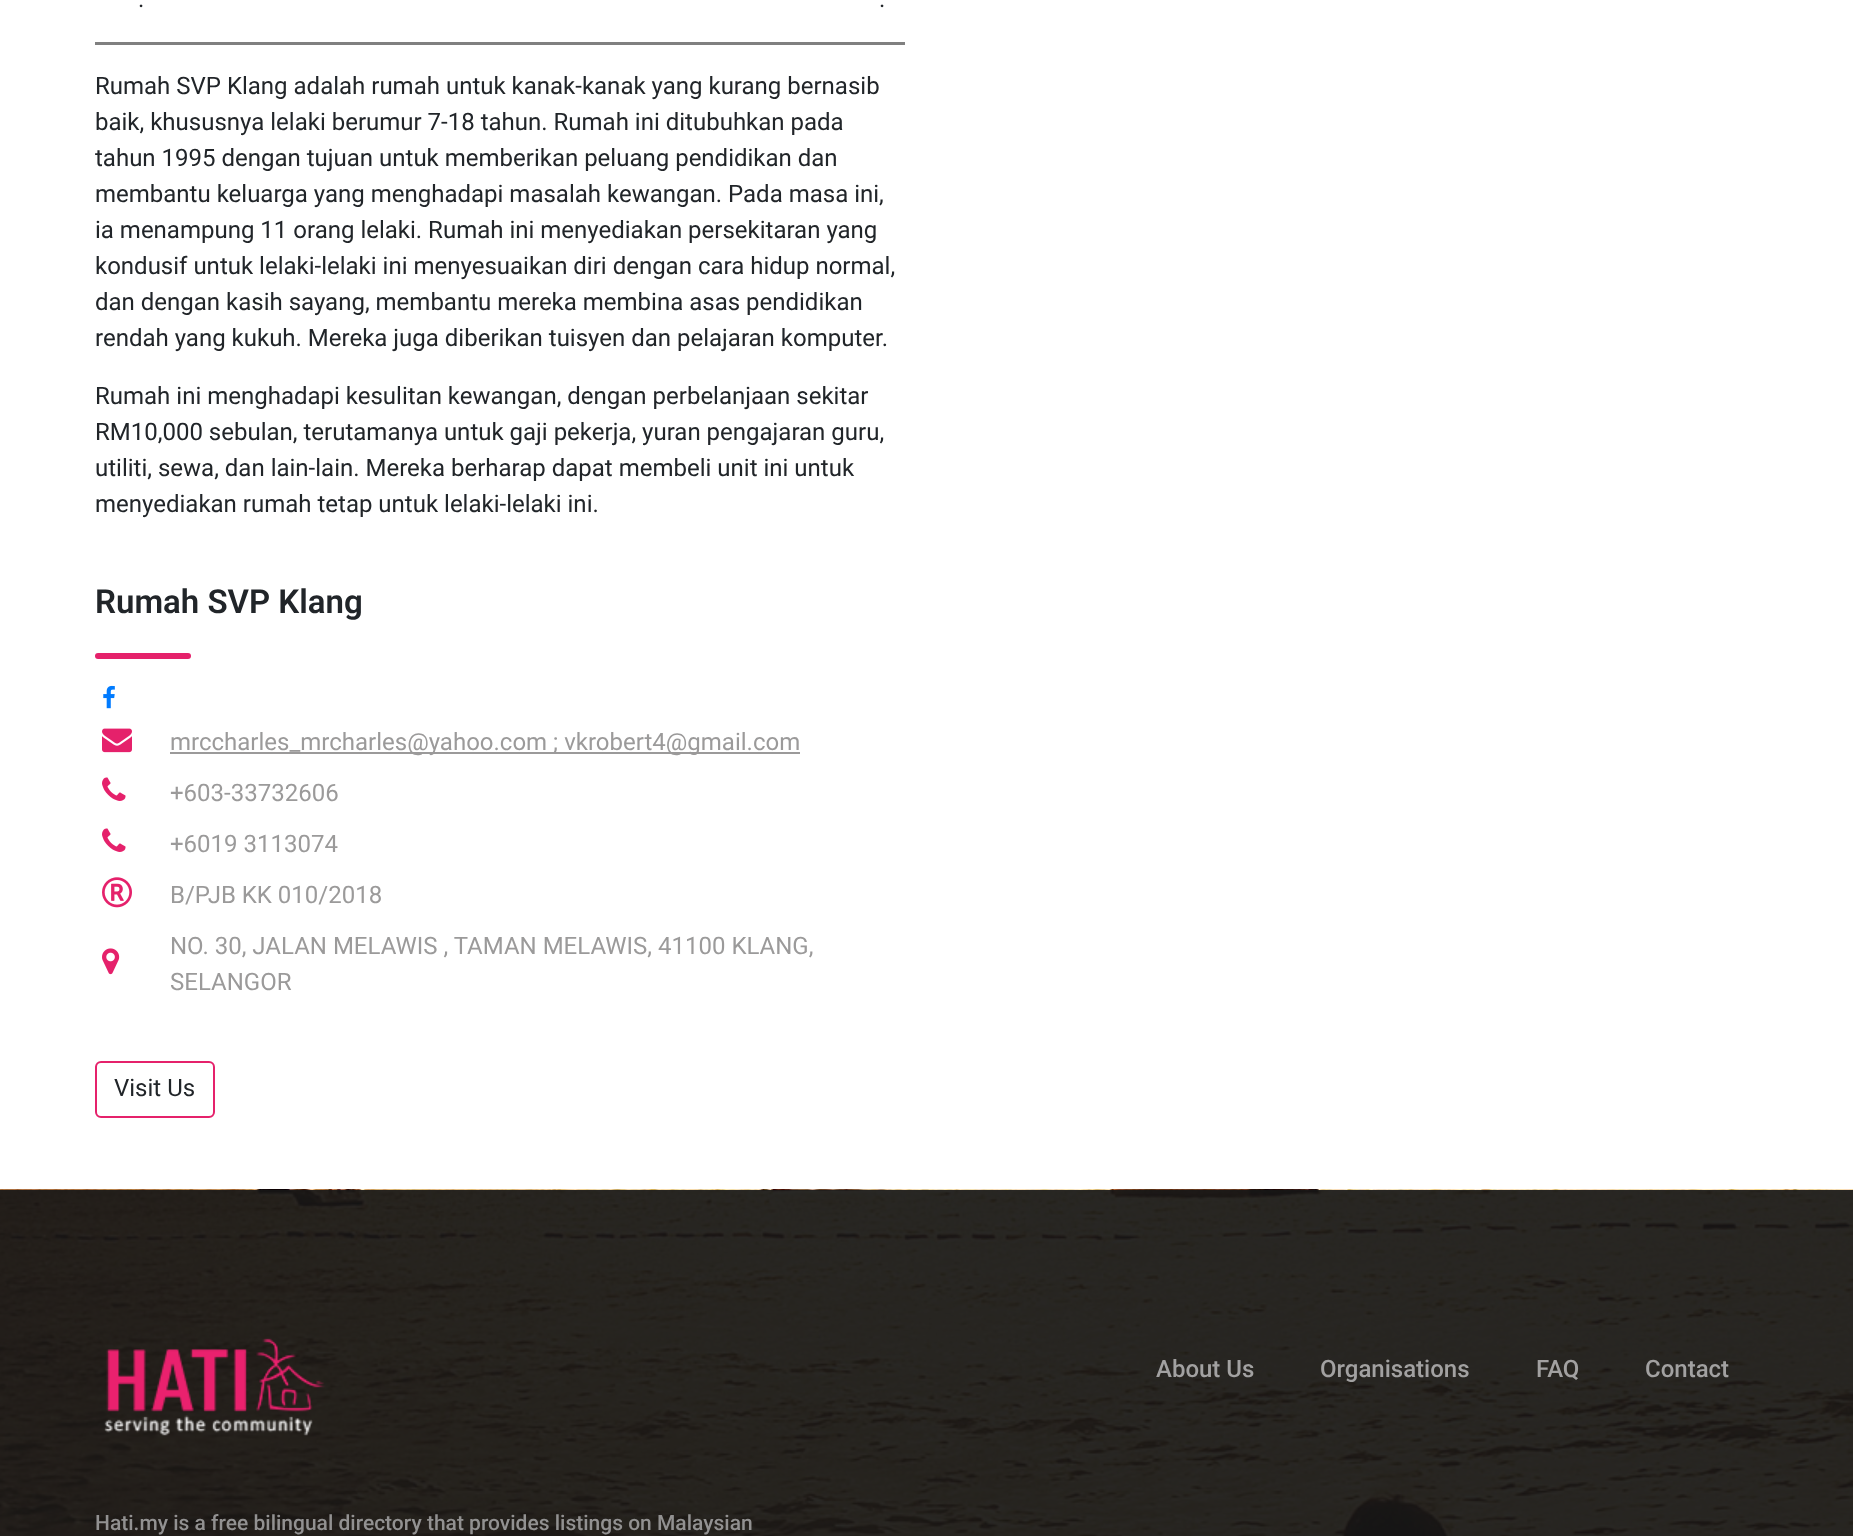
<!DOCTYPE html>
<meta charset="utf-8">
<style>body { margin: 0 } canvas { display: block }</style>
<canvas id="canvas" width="1853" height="1536"></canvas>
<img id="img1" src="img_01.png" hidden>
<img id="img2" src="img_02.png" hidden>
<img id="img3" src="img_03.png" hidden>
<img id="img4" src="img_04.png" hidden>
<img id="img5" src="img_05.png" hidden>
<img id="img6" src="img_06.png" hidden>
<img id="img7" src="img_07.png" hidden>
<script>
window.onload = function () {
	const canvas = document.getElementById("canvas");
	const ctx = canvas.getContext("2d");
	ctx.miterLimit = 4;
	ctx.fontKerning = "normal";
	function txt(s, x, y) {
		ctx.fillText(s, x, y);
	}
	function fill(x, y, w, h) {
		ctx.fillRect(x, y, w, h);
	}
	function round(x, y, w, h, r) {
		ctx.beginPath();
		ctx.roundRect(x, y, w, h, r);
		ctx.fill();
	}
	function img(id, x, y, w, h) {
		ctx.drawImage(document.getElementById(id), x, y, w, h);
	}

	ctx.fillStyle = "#FFFFFF";
	fill(0, 0, 1853, 1536);
	ctx.fillStyle = "#808080";
	fill(95, 42, 810, 3);
	ctx.fillStyle = "#E5216B";
	round(95, 653, 96, 6, 3);
	img("img1", 103, 685, 12, 24);
	img("img2", 102, 728, 30, 25);
	ctx.fillStyle = "#9B9A9A";
	fill(170, 752, 630, 2);
	img("img3", 102, 777, 24, 24);
	img("img3", 102, 828, 24, 24);
	img("img4", 102, 877, 30, 31);
	img("img5", 102, 948, 18, 27);
	ctx.beginPath();
	ctx.roundRect(96, 1062, 118, 55, 5);
	ctx.strokeStyle = "#E5216B";
	ctx.lineWidth = 2;
	ctx.stroke();
	img("img6", 0, 1189, 1853, 347);
	img("img7", 104, 1338, 221, 98);
	ctx.font = "24px Roboto";
	ctx.fillStyle = "#212529";
	txt(".", 138, 7);
	txt(".", 879, 7);
	txt("Rumah SVP Klang adalah rumah untuk kanak-kanak yang kurang bernasib", 95, 94);
	txt("baik, khususnya lelaki berumur 7-18 tahun. Rumah ini ditubuhkan pada", 95, 130);
	txt("tahun 1995 dengan tujuan untuk memberikan peluang pendidikan dan", 95, 166);
	txt("membantu keluarga yang menghadapi masalah kewangan. Pada masa ini,", 95, 202);
	txt("ia menampung 11 orang lelaki. Rumah ini menyediakan persekitaran yang", 95, 238);
	txt("kondusif untuk lelaki-lelaki ini menyesuaikan diri dengan cara hidup normal,", 95, 274);
	txt("dan dengan kasih sayang, membantu mereka membina asas pendidikan", 95, 310);
	txt("rendah yang kukuh. Mereka juga diberikan tuisyen dan pelajaran komputer.", 95, 346);
	txt("Rumah ini menghadapi kesulitan kewangan, dengan perbelanjaan sekitar", 95, 404);
	txt("RM10,000 sebulan, terutamanya untuk gaji pekerja, yuran pengajaran guru,", 95, 440);
	txt("utiliti, sewa, dan lain-lain. Mereka berharap dapat membeli unit ini untuk", 95, 476);
	txt("menyediakan rumah tetap untuk lelaki-lelaki ini.", 95, 512);
	ctx.font = "600 33px Roboto";
	txt("Rumah SVP Klang", 95, 613);
	ctx.font = "24px Roboto";
	ctx.fillStyle = "#9B9A9A";
	txt("mrccharles_mrcharles@yahoo.com ; vkrobert4@gmail.com", 170, 750);
	txt("+603-33732606", 170, 801);
	txt("+6019 3113074", 170, 852);
	txt("B/PJB KK 010/2018", 170, 903);
	txt("NO. 30, JALAN MELAWIS , TAMAN MELAWIS, 41100 KLANG,", 170, 954);
	txt("SELANGOR", 170, 990);
	ctx.fillStyle = "#212529";
	txt("Visit Us", 114, 1096);
	ctx.font = "500 24px Roboto";
	ctx.fillStyle = "#A2A1A1";
	txt("About Us", 1156, 1377);
	txt("Organisations", 1320, 1377);
	txt("FAQ", 1536, 1377);
	txt("Contact", 1645, 1377);
	ctx.font = "500 21px Roboto";
	ctx.fillStyle = "#929191";
	txt("Hati.my is a free bilingual directory that provides listings on Malaysian", 95, 1530);
};
</script>
